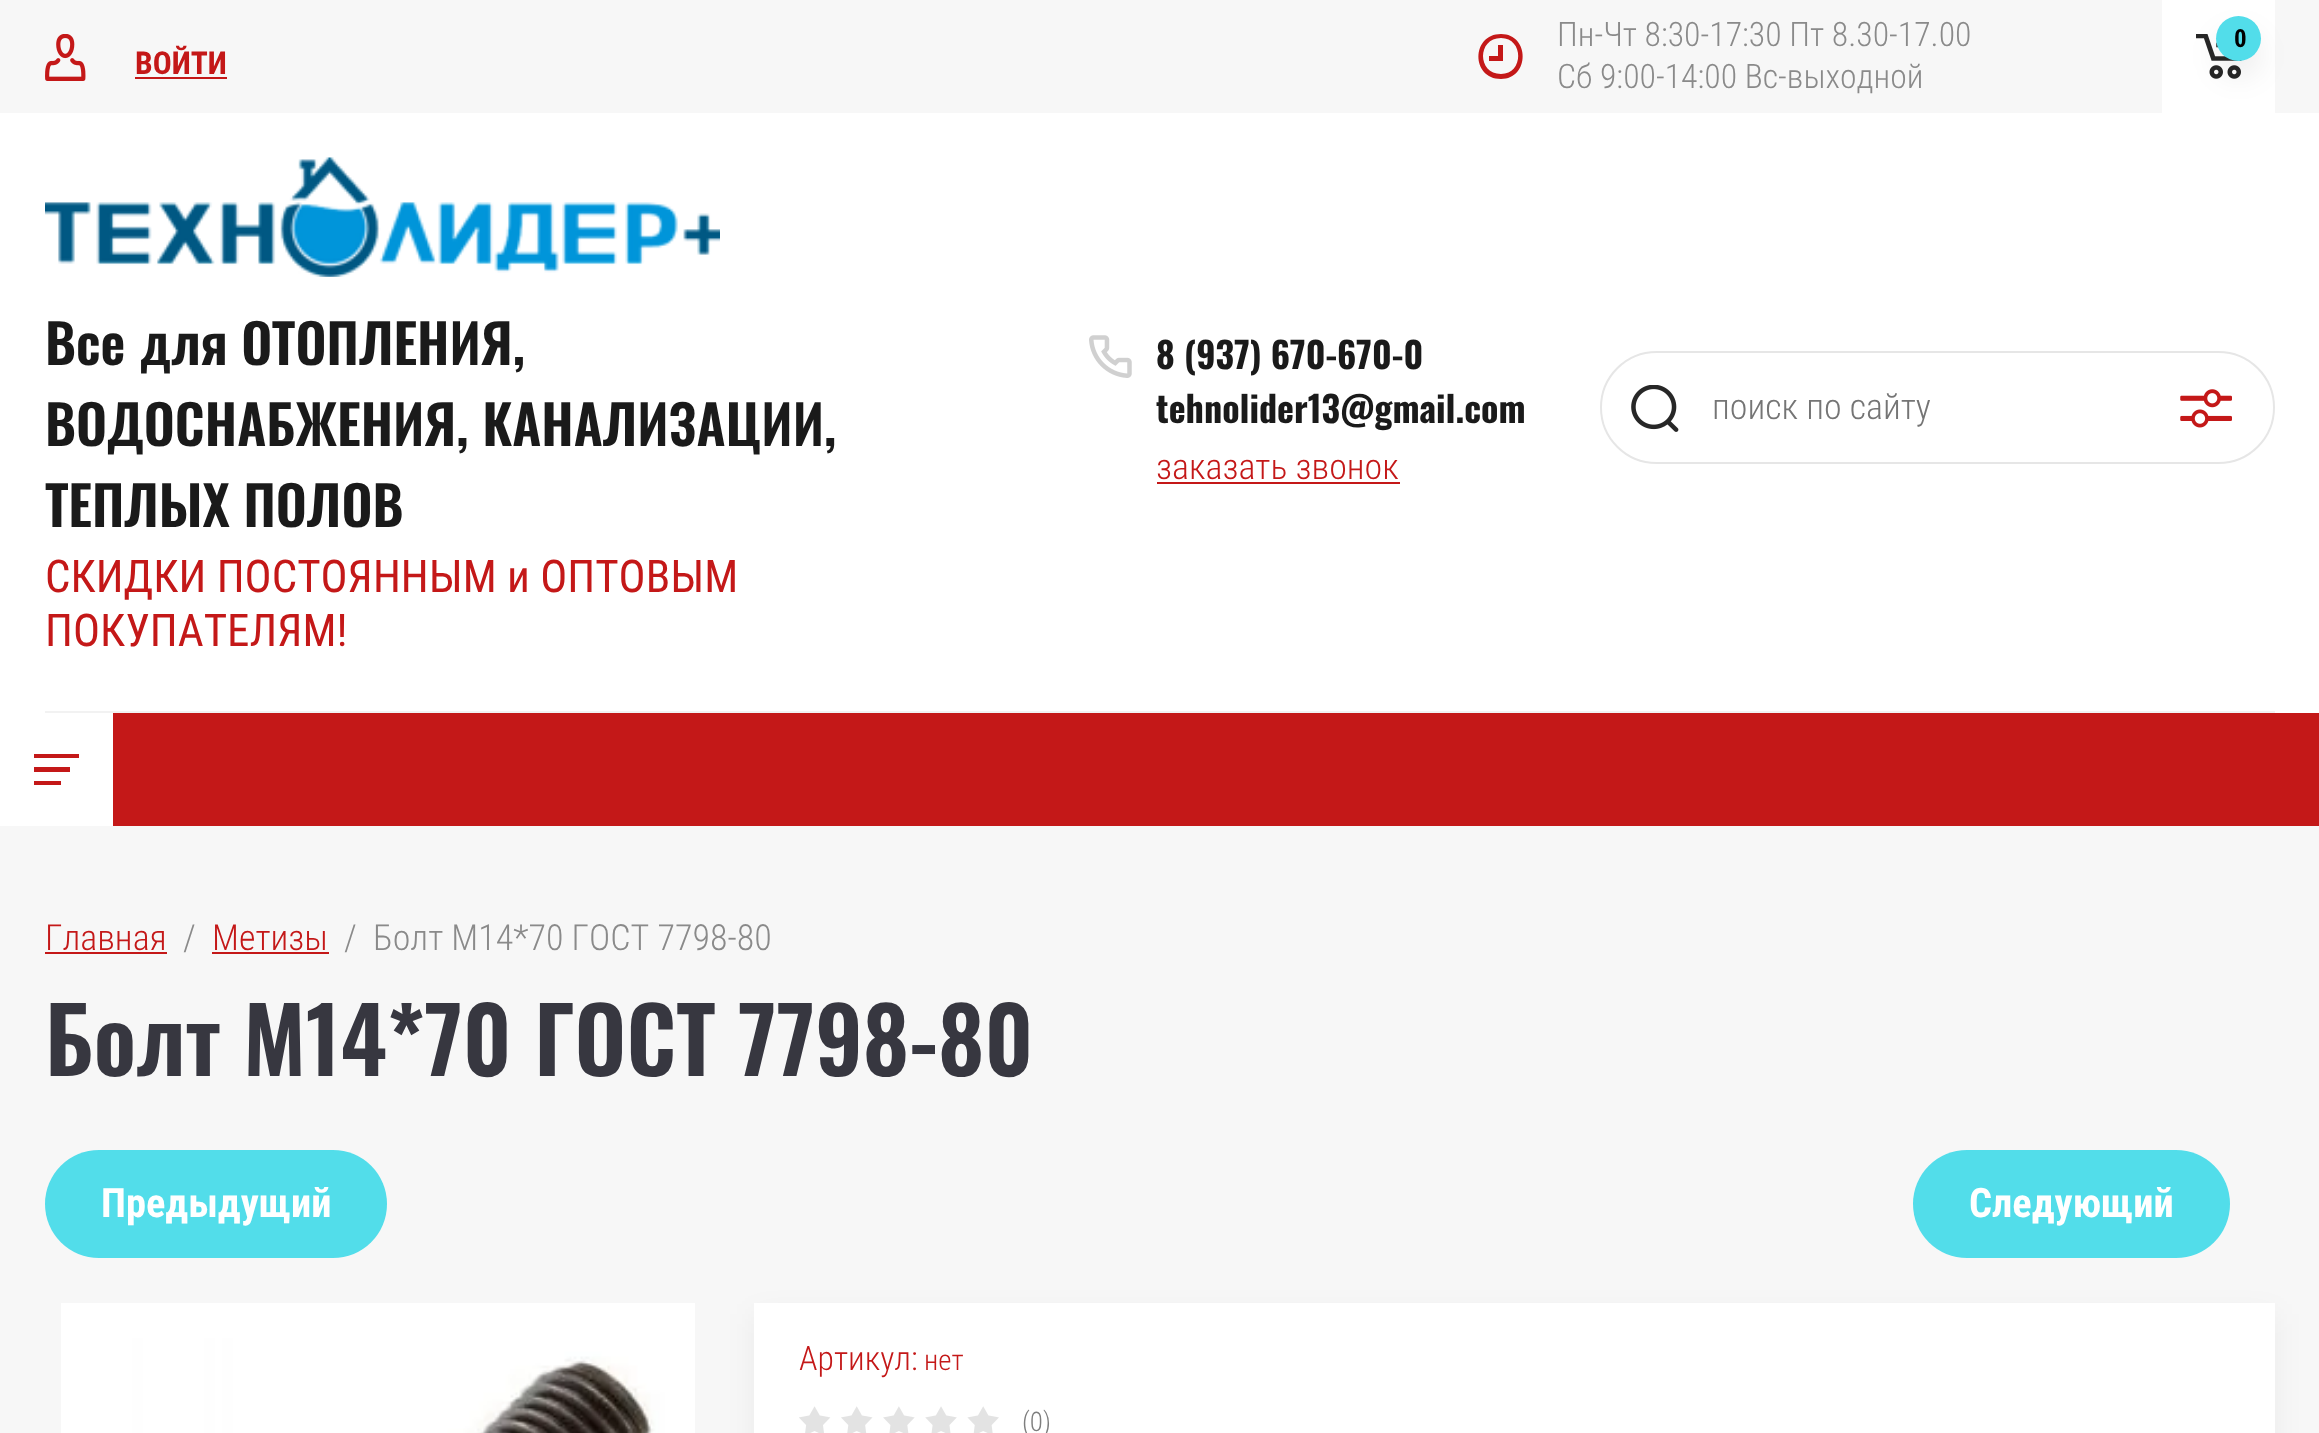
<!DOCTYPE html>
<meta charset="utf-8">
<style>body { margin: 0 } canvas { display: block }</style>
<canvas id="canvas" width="2319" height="1433"></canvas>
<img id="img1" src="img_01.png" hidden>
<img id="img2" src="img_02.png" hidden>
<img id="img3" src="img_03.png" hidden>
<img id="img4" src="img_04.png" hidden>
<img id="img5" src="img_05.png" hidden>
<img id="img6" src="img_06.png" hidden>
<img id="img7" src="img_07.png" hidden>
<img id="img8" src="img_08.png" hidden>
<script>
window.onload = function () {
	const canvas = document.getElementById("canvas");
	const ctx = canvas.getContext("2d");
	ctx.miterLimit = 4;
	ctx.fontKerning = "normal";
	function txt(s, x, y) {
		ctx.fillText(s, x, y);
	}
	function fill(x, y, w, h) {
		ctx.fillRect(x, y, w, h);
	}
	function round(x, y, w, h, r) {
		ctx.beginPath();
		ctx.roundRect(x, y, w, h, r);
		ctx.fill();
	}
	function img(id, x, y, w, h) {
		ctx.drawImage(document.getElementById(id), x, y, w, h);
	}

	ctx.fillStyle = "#F7F7F7";
	fill(0, 0, 2319, 1433);
	img("img1", 45, 34, 41, 47);
	ctx.fillStyle = "#C41818";
	fill(135, 77, 92, 2);
	ctx.beginPath();
	ctx.moveTo(1501, 79);
	ctx.bezierCurveTo(1471, 79, 1471, 34, 1501, 34);
	ctx.bezierCurveTo(1530, 34, 1530, 79, 1501, 79);
	ctx.closePath();
	ctx.moveTo(1501, 38);
	ctx.bezierCurveTo(1477, 38, 1477, 74, 1501, 74);
	ctx.bezierCurveTo(1524, 74, 1524, 38, 1501, 38);
	ctx.closePath();
	ctx.moveTo(1489, 56);
	ctx.lineTo(1498, 56);
	ctx.lineTo(1498, 45);
	ctx.lineTo(1503, 45);
	ctx.lineTo(1503, 61);
	ctx.lineTo(1489, 61);
	ctx.closePath();
	ctx.fill();
	ctx.fillStyle = "#FFFFFF";
	fill(2162, 0, 113, 113);
	img("img2", 2196, 34, 46, 45);
	fill(0, 113, 2319, 600);
	ctx.fillStyle = "rgba(0, 0, 0, 0.07)";
	ctx.filter = "blur(14.5px)";
	ctx.beginPath();
	ctx.roundRect(2216, 32, 45, 45, 22.5);
	ctx.fill();
	ctx.filter = "none";
	ctx.fillStyle = "#52DDEA";
	ctx.beginPath();
	ctx.arc(2238.5, 38.5, 22.5, 0, Math.PI * 2);
	ctx.fill();
	ctx.fillStyle = "#F2F2F2";
	fill(45, 711, 2230, 2);
	img("img3", 45, 157, 675, 120);
	img("img4", 1089, 335, 43, 43);
	ctx.fillStyle = "#C41818";
	fill(1157, 482, 243, 2);
	ctx.beginPath();
	ctx.roundRect(1601, 352, 673, 111, 55.5);
	ctx.strokeStyle = "#E6E6E6";
	ctx.lineWidth = 2;
	ctx.stroke();
	img("img5", 1631, 385, 48, 47);
	img("img6", 2180, 389, 52, 39);
	fill(113, 713, 2206, 113);
	ctx.fillStyle = "#FFFFFF";
	fill(0, 713, 113, 113);
	ctx.fillStyle = "#C41818";
	ctx.beginPath();
	ctx.moveTo(34, 754);
	ctx.lineTo(79, 754);
	ctx.lineTo(79, 758);
	ctx.lineTo(34, 758);
	ctx.closePath();
	ctx.moveTo(34, 767);
	ctx.lineTo(70, 767);
	ctx.lineTo(70, 772);
	ctx.lineTo(34, 772);
	ctx.closePath();
	ctx.moveTo(34, 781);
	ctx.lineTo(61, 781);
	ctx.lineTo(61, 785);
	ctx.lineTo(34, 785);
	ctx.closePath();
	ctx.fill();
	fill(45, 952, 122, 2);
	fill(212, 952, 117, 2);
	ctx.fillStyle = "#52DDEA";
	round(45, 1150, 342, 108, 54);
	round(1913, 1150, 317, 108, 54);
	img("img7", 61, 1303, 634, 130);
	ctx.fillStyle = "rgba(0, 0, 0, 0.05)";
	ctx.filter = "blur(14.5px)";
	ctx.beginPath();
	ctx.rect(754, 1314, 1521, 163);
	ctx.fill();
	ctx.filter = "none";
	ctx.fillStyle = "#FFFFFF";
	fill(754, 1303, 1521, 130);
	img("img8", 799, 1406, 200, 27);
	ctx.font = "bold 31.5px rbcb";
	ctx.fillStyle = "#C41818";
	txt("ВОЙТИ", 135, 74);
	ctx.font = "300 33.75px Roboto Condensed";
	ctx.fillStyle = "#8A8A8A";
	txt("Пн-Чт 8:30-17:30 Пт 8.30-17.00", 1557, 46);
	txt("Сб 9:00-14:00 Вс-выходной", 1557, 88);
	ctx.font = "bold 25px rbcb";
	ctx.fillStyle = "#000000";
	txt("0", 2234, 47);
	ctx.font = "600 54px Oswald";
	ctx.fillStyle = "#1A1A1A";
	txt("Все для ОТОПЛЕНИЯ,", 45, 365);
	txt("ВОДОСНАБЖЕНИЯ, КАНАЛИЗАЦИИ,", 45, 446);
	txt("ТЕПЛЫХ ПОЛОВ", 45, 527);
	ctx.font = "45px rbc";
	ctx.fillStyle = "#C41818";
	txt("СКИДКИ ПОСТОЯННЫМ и ОПТОВЫМ", 45, 592);
	txt("ПОКУПАТЕЛЯМ!", 45, 646);
	ctx.font = "bold 36px Oswald";
	ctx.fillStyle = "#1A1A1A";
	txt("8 (937) 670-670-0", 1156, 369);
	txt("tehnolider13@gmail.com", 1156, 423);
	ctx.font = "300 36px Roboto Condensed";
	ctx.fillStyle = "#C41818";
	txt("заказать звонок", 1156, 479);
	ctx.fillStyle = "#757575";
	txt("поиск по сайту", 1712, 419);
	ctx.fillStyle = "#C41818";
	txt("Главная", 45, 950);
	ctx.fillStyle = "#8A8A8A";
	txt("/", 183, 950);
	ctx.fillStyle = "#C41818";
	txt("Метизы", 212, 950);
	ctx.fillStyle = "#8A8A8A";
	txt("/  Болт М14*70 ГОСТ 7798-80", 344, 950);
	ctx.font = "600 90px Oswald";
	ctx.fillStyle = "#373740";
	txt("Болт М14*70 ГОСТ 7798-80", 45, 1076);
	ctx.font = "bold 40.5px rbcb";
	ctx.fillStyle = "#FFFFFF";
	txt("Предыдущий", 101, 1217);
	txt("Следующий", 1969, 1217);
	ctx.font = "300 33.75px Roboto Condensed";
	ctx.fillStyle = "#C41818";
	txt("Артикул:", 799, 1370);
	ctx.font = "300 29px Roboto Condensed";
	txt("нет", 924, 1370);
	ctx.font = "300 27px Roboto Condensed";
	ctx.fillStyle = "#7E7E7E";
	txt("(0)", 1022, 1431);
};
</script>
